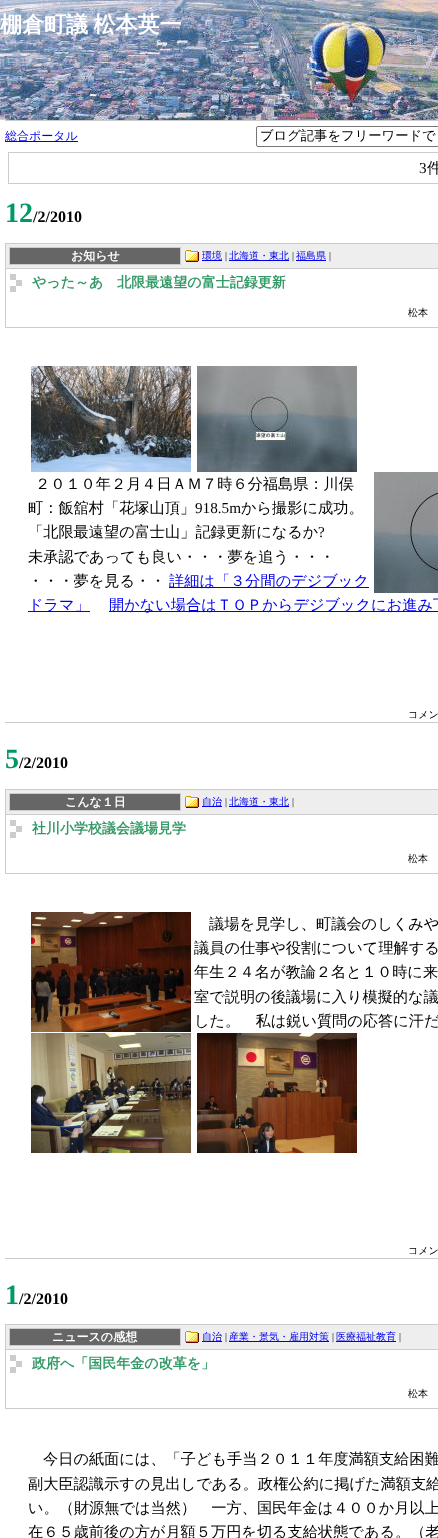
<!DOCTYPE html>
<meta charset="utf-8">
<style>body { margin: 0 } canvas { display: block }</style>
<canvas id="canvas" width="438" height="1538"></canvas>
<img id="img1" src="img_01.png" hidden>
<img id="img2" src="img_02.png" hidden>
<img id="img3" src="img_03.png" hidden>
<img id="img4" src="img_04.png" hidden>
<img id="img5" src="img_05.png" hidden>
<img id="img6" src="img_06.png" hidden>
<img id="img7" src="img_07.png" hidden>
<img id="img8" src="img_08.png" hidden>
<img id="img9" src="img_09.png" hidden>
<script>
window.onload = function () {
	const canvas = document.getElementById("canvas");
	const ctx = canvas.getContext("2d");
	ctx.miterLimit = 4;
	ctx.fontKerning = "normal";
	function txt(s, x, y) {
		ctx.fillText(s, x, y);
	}
	function fill(x, y, w, h) {
		ctx.fillRect(x, y, w, h);
	}
	function img(id, x, y, w, h) {
		ctx.drawImage(document.getElementById(id), x, y, w, h);
	}

	ctx.fillStyle = "#FFFFFF";
	fill(0, 0, 438, 1538);
	img("img1", 0, 0, 438, 120);
	ctx.fillStyle = "#CCCCCC";
	fill(5, 120, 433, 1);
	ctx.fillStyle = "#0000EE";
	fill(5, 141, 73, 1);
	ctx.beginPath();
	ctx.roundRect(256.5, 126.5, 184, 20, 1.5);
	ctx.strokeStyle = "#767676";
	ctx.stroke();
	ctx.strokeStyle = "#CCCCCC";
	ctx.strokeRect(8.5, 152.5, 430, 31);
	ctx.fillStyle = "#CCCCCC";
	fill(5, 722, 433, 1);
	ctx.strokeRect(5.5, 243.5, 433, 84);
	ctx.fillStyle = "#EEEEEE";
	fill(6, 244, 432, 24);
	ctx.fillStyle = "#CCCCCC";
	fill(6, 268, 432, 1);
	ctx.fillStyle = "#666666";
	ctx.beginPath();
	ctx.rect(9.5, 247.5, 171, 17);
	ctx.fill();
	ctx.stroke();
	img("img2", 185, 250, 14, 12);
	ctx.fillStyle = "#0000EE";
	fill(202, 260, 20, 1);
	fill(229, 260, 60, 1);
	fill(296, 260, 30, 1);
	img("img3", 10, 274, 12, 18);
	img("img4", 31, 366, 160, 106);
	img("img5", 197, 366, 160, 106);
	img("img6", 374, 472, 64, 121);
	fill(169, 587, 200, 1);
	fill(28, 611, 62, 1);
	fill(109, 611, 329, 1);
	ctx.fillStyle = "#CCCCCC";
	fill(5, 1258, 433, 1);
	ctx.strokeRect(5.5, 789.5, 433, 84);
	ctx.fillStyle = "#EEEEEE";
	fill(6, 790, 432, 24);
	ctx.fillStyle = "#CCCCCC";
	fill(6, 814, 432, 1);
	ctx.fillStyle = "#666666";
	ctx.beginPath();
	ctx.rect(9.5, 793.5, 171, 17);
	ctx.fill();
	ctx.stroke();
	img("img2", 185, 796, 14, 12);
	ctx.fillStyle = "#0000EE";
	fill(202, 806, 20, 1);
	fill(229, 806, 60, 1);
	img("img3", 10, 820, 12, 18);
	img("img7", 31, 912, 160, 120);
	img("img8", 31, 1033, 160, 120);
	img("img9", 197, 1033, 160, 120);
	ctx.strokeRect(5.5, 1324.5, 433, 84);
	ctx.fillStyle = "#EEEEEE";
	fill(6, 1325, 432, 24);
	ctx.fillStyle = "#CCCCCC";
	fill(6, 1349, 432, 1);
	ctx.fillStyle = "#666666";
	ctx.beginPath();
	ctx.rect(9.5, 1328.5, 171, 17);
	ctx.fill();
	ctx.stroke();
	img("img2", 185, 1331, 14, 12);
	ctx.fillStyle = "#0000EE";
	fill(202, 1341, 20, 1);
	fill(229, 1341, 100, 1);
	fill(336, 1341, 60, 1);
	img("img3", 10, 1355, 12, 18);
	ctx.wordSpacing = "-1px";
	ctx.font = "bold 22px WenQuanYi Zen Hei";
	ctx.fillStyle = "#FFFFFF";
	txt("棚倉町議 松本英一", 0, 32);
	ctx.wordSpacing = "0px";
	ctx.font = "500 12px WenQuanYi Zen Hei";
	ctx.fillStyle = "#0000EE";
	txt("総合ポータル", 5, 140);
	ctx.font = "500 13.3px WenQuanYi Zen Hei";
	ctx.fillStyle = "#000000";
	txt("ブログ記事をフリーワードで", 260, 140);
	ctx.font = "15.2px Liberation Serif";
	txt("3", 419, 173);
	ctx.font = "500 15.2px WenQuanYi Zen Hei";
	txt("件", 427, 173);
	ctx.font = "bold 28px Liberation Serif";
	ctx.fillStyle = "#009966";
	txt("12", 5, 222);
	ctx.font = "bold 16px Liberation Serif";
	ctx.fillStyle = "#000000";
	txt("/2/2010", 33, 222);
	ctx.font = "bold 12px WenQuanYi Zen Hei";
	ctx.fillStyle = "#FFFFFF";
	txt("お知らせ", 71, 260);
	ctx.font = "500 10px WenQuanYi Zen Hei";
	ctx.fillStyle = "#0000EE";
	txt("環境", 202, 259);
	ctx.font = "10px Liberation Serif";
	ctx.fillStyle = "#000000";
	txt("|", 225, 259);
	ctx.font = "500 10px WenQuanYi Zen Hei";
	ctx.fillStyle = "#0000EE";
	txt("北海道・東北", 229, 259);
	ctx.font = "10px Liberation Serif";
	ctx.fillStyle = "#000000";
	txt("|", 292, 259);
	ctx.font = "500 10px WenQuanYi Zen Hei";
	ctx.fillStyle = "#0000EE";
	txt("福島県", 296, 259);
	ctx.font = "10px Liberation Serif";
	ctx.fillStyle = "#000000";
	txt("|", 329, 259);
	ctx.font = "bold 14px WenQuanYi Zen Hei";
	ctx.fillStyle = "#339966";
	txt("やった～あ　北限最遠望の富士記録更新", 32, 287);
	ctx.font = "500 10px WenQuanYi Zen Hei";
	ctx.fillStyle = "#000000";
	txt("松本", 408, 316);
	ctx.font = "500 15.2px WenQuanYi Zen Hei";
	txt("２０１０年２月４日ＡＭ７時６分福島県：川俣", 35, 489);
	txt("町：飯舘村「花塚山頂」", 28, 513);
	ctx.font = "15.2px Liberation Serif";
	txt("918.5m", 195, 513);
	ctx.font = "500 15.2px WenQuanYi Zen Hei";
	txt("から撮影に成功。", 241, 513);
	txt("「北限最遠望の富士山」記録更新になるか", 28, 537);
	ctx.font = "15.2px Liberation Serif";
	txt("?", 318, 537);
	ctx.font = "500 15.2px WenQuanYi Zen Hei";
	txt("未承認であっても良い・・・夢を追う・・・", 28, 562);
	txt("・・・夢を見る・・", 28, 586);
	ctx.fillStyle = "#0000EE";
	txt("詳細は「３分間のデジブック", 169, 586);
	txt("ドラマ」", 28, 610);
	txt("開かない場合はＴＯＰからデジブックにお進み下", 109, 610);
	ctx.font = "500 10px WenQuanYi Zen Hei";
	ctx.fillStyle = "#000000";
	txt("コメン", 408, 718);
	ctx.font = "bold 28px Liberation Serif";
	ctx.fillStyle = "#009966";
	txt("5", 5, 768);
	ctx.font = "bold 16px Liberation Serif";
	ctx.fillStyle = "#000000";
	txt("/2/2010", 19, 768);
	ctx.font = "bold 12px WenQuanYi Zen Hei";
	ctx.fillStyle = "#FFFFFF";
	txt("こんな１日", 65, 806);
	ctx.font = "500 10px WenQuanYi Zen Hei";
	ctx.fillStyle = "#0000EE";
	txt("自治", 202, 805);
	ctx.font = "10px Liberation Serif";
	ctx.fillStyle = "#000000";
	txt("|", 225, 805);
	ctx.font = "500 10px WenQuanYi Zen Hei";
	ctx.fillStyle = "#0000EE";
	txt("北海道・東北", 229, 805);
	ctx.font = "10px Liberation Serif";
	ctx.fillStyle = "#000000";
	txt("|", 292, 805);
	ctx.font = "bold 14px WenQuanYi Zen Hei";
	ctx.fillStyle = "#339966";
	txt("社川小学校議会議場見学", 32, 833);
	ctx.font = "500 10px WenQuanYi Zen Hei";
	ctx.fillStyle = "#000000";
	txt("松本", 408, 862);
	ctx.font = "500 15.2px WenQuanYi Zen Hei";
	txt("議場を見学し、町議会のしくみや", 209, 929);
	txt("議員の仕事や役割について理解する", 194, 953);
	txt("年生２４名が教論２名と１０時に来", 194, 977);
	txt("室で説明の後議場に入り模擬的な議", 194, 1002);
	txt("した。　私は鋭い質問の応答に汗だ", 194, 1026);
	ctx.font = "500 10px WenQuanYi Zen Hei";
	txt("コメン", 408, 1254);
	ctx.font = "bold 28px Liberation Serif";
	ctx.fillStyle = "#009966";
	txt("1", 5, 1304);
	ctx.font = "bold 16px Liberation Serif";
	ctx.fillStyle = "#000000";
	txt("/2/2010", 19, 1304);
	ctx.font = "bold 12px WenQuanYi Zen Hei";
	ctx.fillStyle = "#FFFFFF";
	txt("ニュースの感想", 52, 1341);
	ctx.font = "500 10px WenQuanYi Zen Hei";
	ctx.fillStyle = "#0000EE";
	txt("自治", 202, 1340);
	ctx.font = "10px Liberation Serif";
	ctx.fillStyle = "#000000";
	txt("|", 225, 1340);
	ctx.font = "500 10px WenQuanYi Zen Hei";
	ctx.fillStyle = "#0000EE";
	txt("産業・景気・雇用対策", 229, 1340);
	ctx.font = "10px Liberation Serif";
	ctx.fillStyle = "#000000";
	txt("|", 332, 1340);
	ctx.font = "500 10px WenQuanYi Zen Hei";
	ctx.fillStyle = "#0000EE";
	txt("医療福祉教育", 336, 1340);
	ctx.font = "10px Liberation Serif";
	ctx.fillStyle = "#000000";
	txt("|", 399, 1340);
	ctx.font = "bold 14px WenQuanYi Zen Hei";
	ctx.fillStyle = "#339966";
	txt("政府へ「国民年金の改革を」", 32, 1368);
	ctx.font = "500 10px WenQuanYi Zen Hei";
	ctx.fillStyle = "#000000";
	txt("松本", 408, 1397);
	ctx.font = "500 15.2px WenQuanYi Zen Hei";
	txt("今日の紙面には、「子ども手当２０１１年度満額支給困難", 43, 1464);
	txt("副大臣認識示すの見出しである。政権公約に掲げた満額支給", 28, 1489);
	txt("い。（財源無では当然）　一方、国民年金は４００か月以上", 28, 1513);
	txt("在６５歳前後の方が月額５万円を切る支給状態である。（老", 28, 1537);
};
</script>
